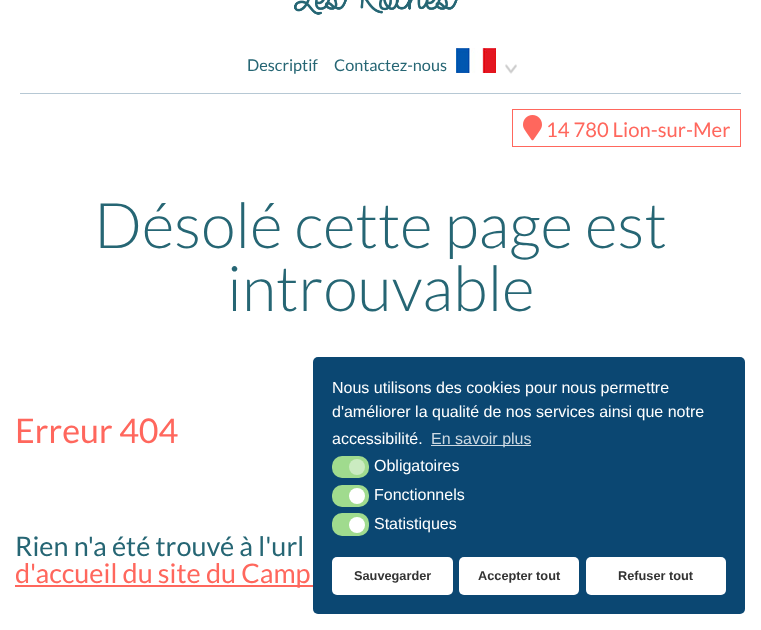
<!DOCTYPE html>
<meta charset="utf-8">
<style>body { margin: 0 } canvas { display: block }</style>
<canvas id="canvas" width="761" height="630"></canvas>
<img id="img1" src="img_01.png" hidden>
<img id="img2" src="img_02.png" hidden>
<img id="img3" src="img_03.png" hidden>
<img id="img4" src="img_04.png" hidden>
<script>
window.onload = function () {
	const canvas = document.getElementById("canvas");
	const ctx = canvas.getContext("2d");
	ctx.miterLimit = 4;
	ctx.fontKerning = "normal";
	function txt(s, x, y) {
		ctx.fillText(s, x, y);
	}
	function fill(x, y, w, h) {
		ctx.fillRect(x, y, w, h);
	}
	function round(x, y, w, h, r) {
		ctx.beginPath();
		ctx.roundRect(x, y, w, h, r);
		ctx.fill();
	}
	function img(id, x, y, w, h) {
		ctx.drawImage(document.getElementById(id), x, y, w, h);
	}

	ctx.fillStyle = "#FFFFFF";
	fill(0, 0, 761, 630);
	img("img1", 294, 0, 164, 15);
	ctx.fillStyle = "#B6C8D4";
	fill(20, 93, 721, 1);
	img("img2", 456, 48, 40, 25);
	img("img3", 505, 64, 12, 10);
	ctx.strokeStyle = "#FF675D";
	ctx.strokeRect(512.5, 109.5, 228, 37);
	img("img4", 523, 115, 19, 26);
	ctx.fillStyle = "#FF675D";
	fill(15, 585, 298, 2);
	ctx.fillStyle = "#0B4772";
	round(313, 357, 432, 257, 5);
	ctx.fillStyle = "#CEDAE3";
	fill(431, 445, 100, 1);
	ctx.fillStyle = "#A0DB8E";
	round(332, 456, 37, 22, 10);
	ctx.fillStyle = "#CBEBC1";
	ctx.beginPath();
	ctx.arc(357, 467, 8, 0, Math.PI * 2);
	ctx.fill();
	ctx.fillStyle = "#A0DB8E";
	round(332, 485, 37, 22, 10);
	ctx.fillStyle = "#FFFFFF";
	ctx.beginPath();
	ctx.arc(357, 496, 8, 0, Math.PI * 2);
	ctx.fill();
	ctx.fillStyle = "#A0DB8E";
	round(332, 513, 37, 23, 10);
	ctx.fillStyle = "#FFFFFF";
	ctx.beginPath();
	ctx.arc(357, 525, 8, 0, Math.PI * 2);
	ctx.fill();
	round(332, 557, 121, 38, 5);
	round(459, 557, 120, 38, 5);
	round(586, 557, 140, 38, 5);
	ctx.font = "16.25px Lato";
	ctx.fillStyle = "#266674";
	txt("Descriptif", 247, 71);
	txt("Contactez-nous", 334, 71);
	ctx.font = "20.25px Lato";
	ctx.fillStyle = "#FF675D";
	txt("14 780 Lion-sur-Mer", 546, 137);
	ctx.font = "300 63px Lato";
	ctx.fillStyle = "#266674";
	txt("Désolé cette page est", 94, 248);
	txt("introuvable", 227, 311);
	ctx.font = "34px Lato";
	ctx.fillStyle = "#FF675D";
	txt("Erreur 404", 15, 443);
	ctx.font = "27px Lato";
	ctx.fillStyle = "#266674";
	txt("Rien n'a été trouvé à l'url", 15, 556);
	ctx.fillStyle = "#FF675D";
	txt("d'accueil du site du Camp", 15, 583);
	ctx.font = "16px Liberation Sans";
	ctx.fillStyle = "#FFFFFF";
	txt("Nous utilisons des cookies pour nous permettre", 332, 393);
	txt("d'améliorer la qualité de nos services ainsi que notre", 332, 417);
	txt("accessibilité.", 332, 444);
	ctx.fillStyle = "#CEDAE3";
	txt("En savoir plus", 431, 444);
	ctx.fillStyle = "#FFFFFF";
	txt("Obligatoires", 374, 471);
	txt("Fonctionnels", 374, 500);
	txt("Statistiques", 374, 529);
	ctx.font = "bold 12.75px Liberation Sans";
	ctx.fillStyle = "#333333";
	txt("Sauvegarder", 354, 580);
	txt("Accepter tout", 478, 580);
	txt("Refuser tout", 618, 580);
};
</script>
